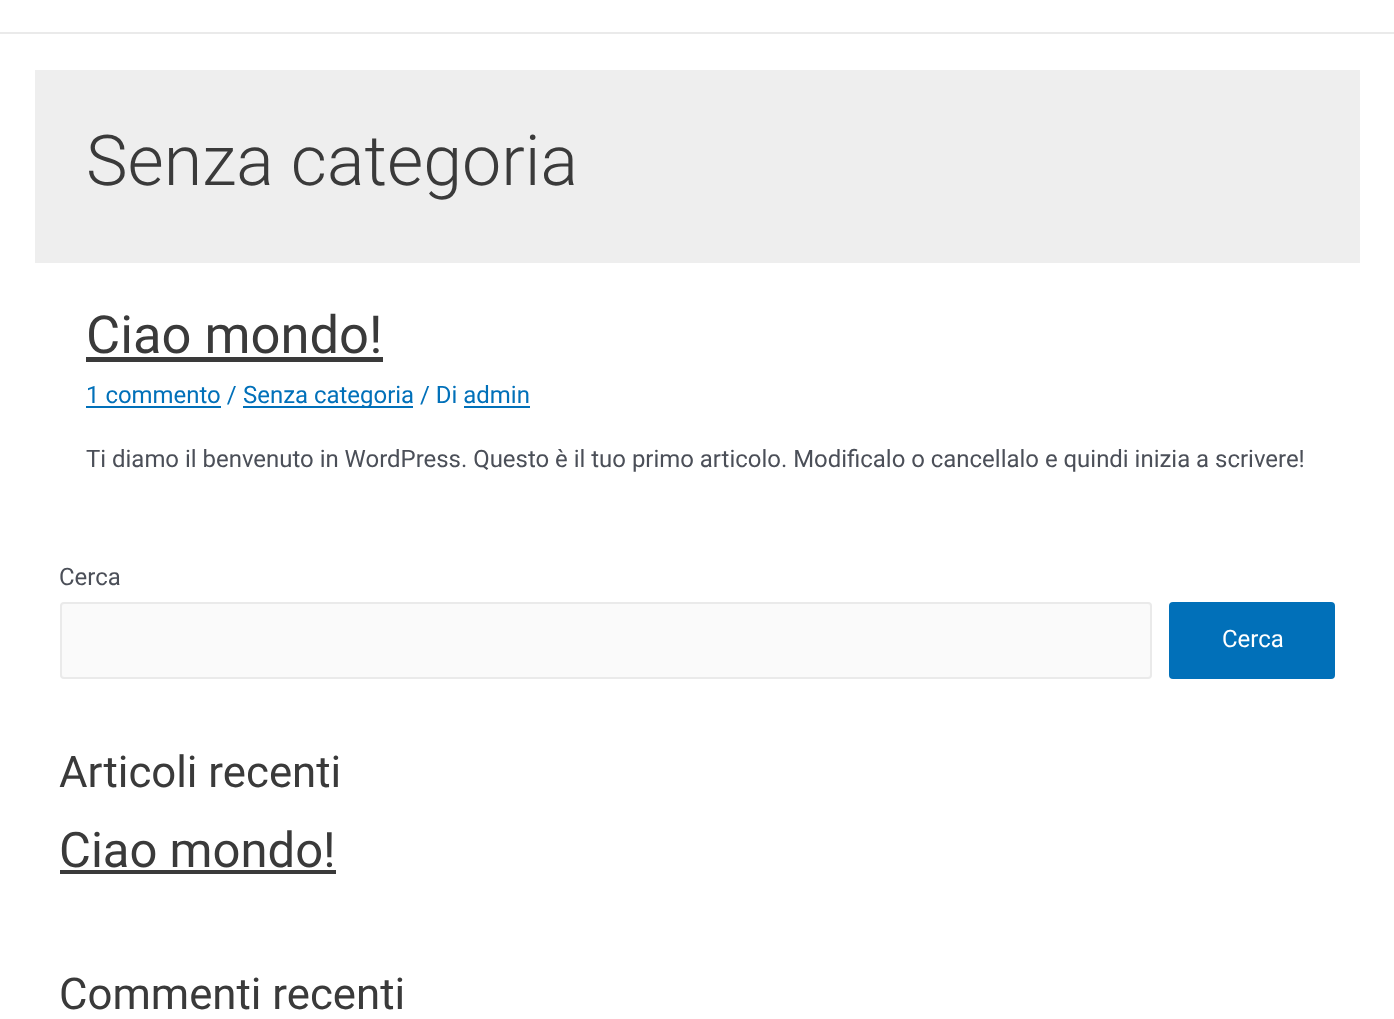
<!DOCTYPE html>
<meta charset="utf-8">
<style>body { margin: 0 } canvas { display: block }</style>
<canvas id="canvas" width="1394" height="1019"></canvas>
<script>
window.onload = function () {
	const canvas = document.getElementById("canvas");
	const ctx = canvas.getContext("2d");
	ctx.miterLimit = 4;
	ctx.fontKerning = "normal";
	function txt(s, x, y) {
		ctx.fillText(s, x, y);
	}
	function fill(x, y, w, h) {
		ctx.fillRect(x, y, w, h);
	}
	function round(x, y, w, h, r) {
		ctx.beginPath();
		ctx.roundRect(x, y, w, h, r);
		ctx.fill();
	}

	ctx.fillStyle = "#FFFFFF";
	fill(0, 0, 1394, 1019);
	ctx.fillStyle = "#EAEAEA";
	fill(0, 32, 1394, 2);
	ctx.fillStyle = "#EEEEEE";
	fill(35, 70, 1325, 193);
	ctx.fillStyle = "#3A3A3A";
	fill(86, 357, 297, 5);
	ctx.fillStyle = "#0170B9";
	fill(86, 406, 135, 2);
	fill(243, 406, 170, 2);
	fill(464, 406, 66, 2);
	ctx.fillStyle = "#FAFAFA";
	ctx.beginPath();
	ctx.roundRect(61, 603, 1090, 75, 3);
	ctx.fill();
	ctx.strokeStyle = "#EAEAEA";
	ctx.lineWidth = 2;
	ctx.stroke();
	ctx.fillStyle = "#0170B9";
	round(1169, 602, 166, 77, 4);
	ctx.fillStyle = "#3A3A3A";
	fill(60, 870, 276, 4);
	ctx.font = "300 70px Roboto";
	txt("Senza categoria", 86, 185);
	ctx.font = "52.5px Roboto";
	txt("Ciao mondo!", 86, 353);
	ctx.font = "23.95px Roboto";
	ctx.fillStyle = "#0170B9";
	txt("1 commento /", 86, 403);
	txt("Senza categoria / Di admin", 243, 403);
	ctx.fillStyle = "#4B4F58";
	txt("Ti diamo il benvenuto in WordPress. Questo è il tuo primo articolo. Modificalo o cancellalo e quindi inizia a scrivere!", 86, 467);
	txt("Cerca", 59, 585);
	ctx.fillStyle = "#FFFFFF";
	txt("Cerca", 1222, 647);
	ctx.font = "43.75px Roboto";
	ctx.fillStyle = "#3A3A3A";
	txt("Articoli recenti", 59, 787);
	ctx.font = "49px Roboto";
	txt("Ciao mondo!", 59, 867);
	ctx.font = "43.75px Roboto";
	txt("Commenti recenti", 59, 1009);
};
</script>
